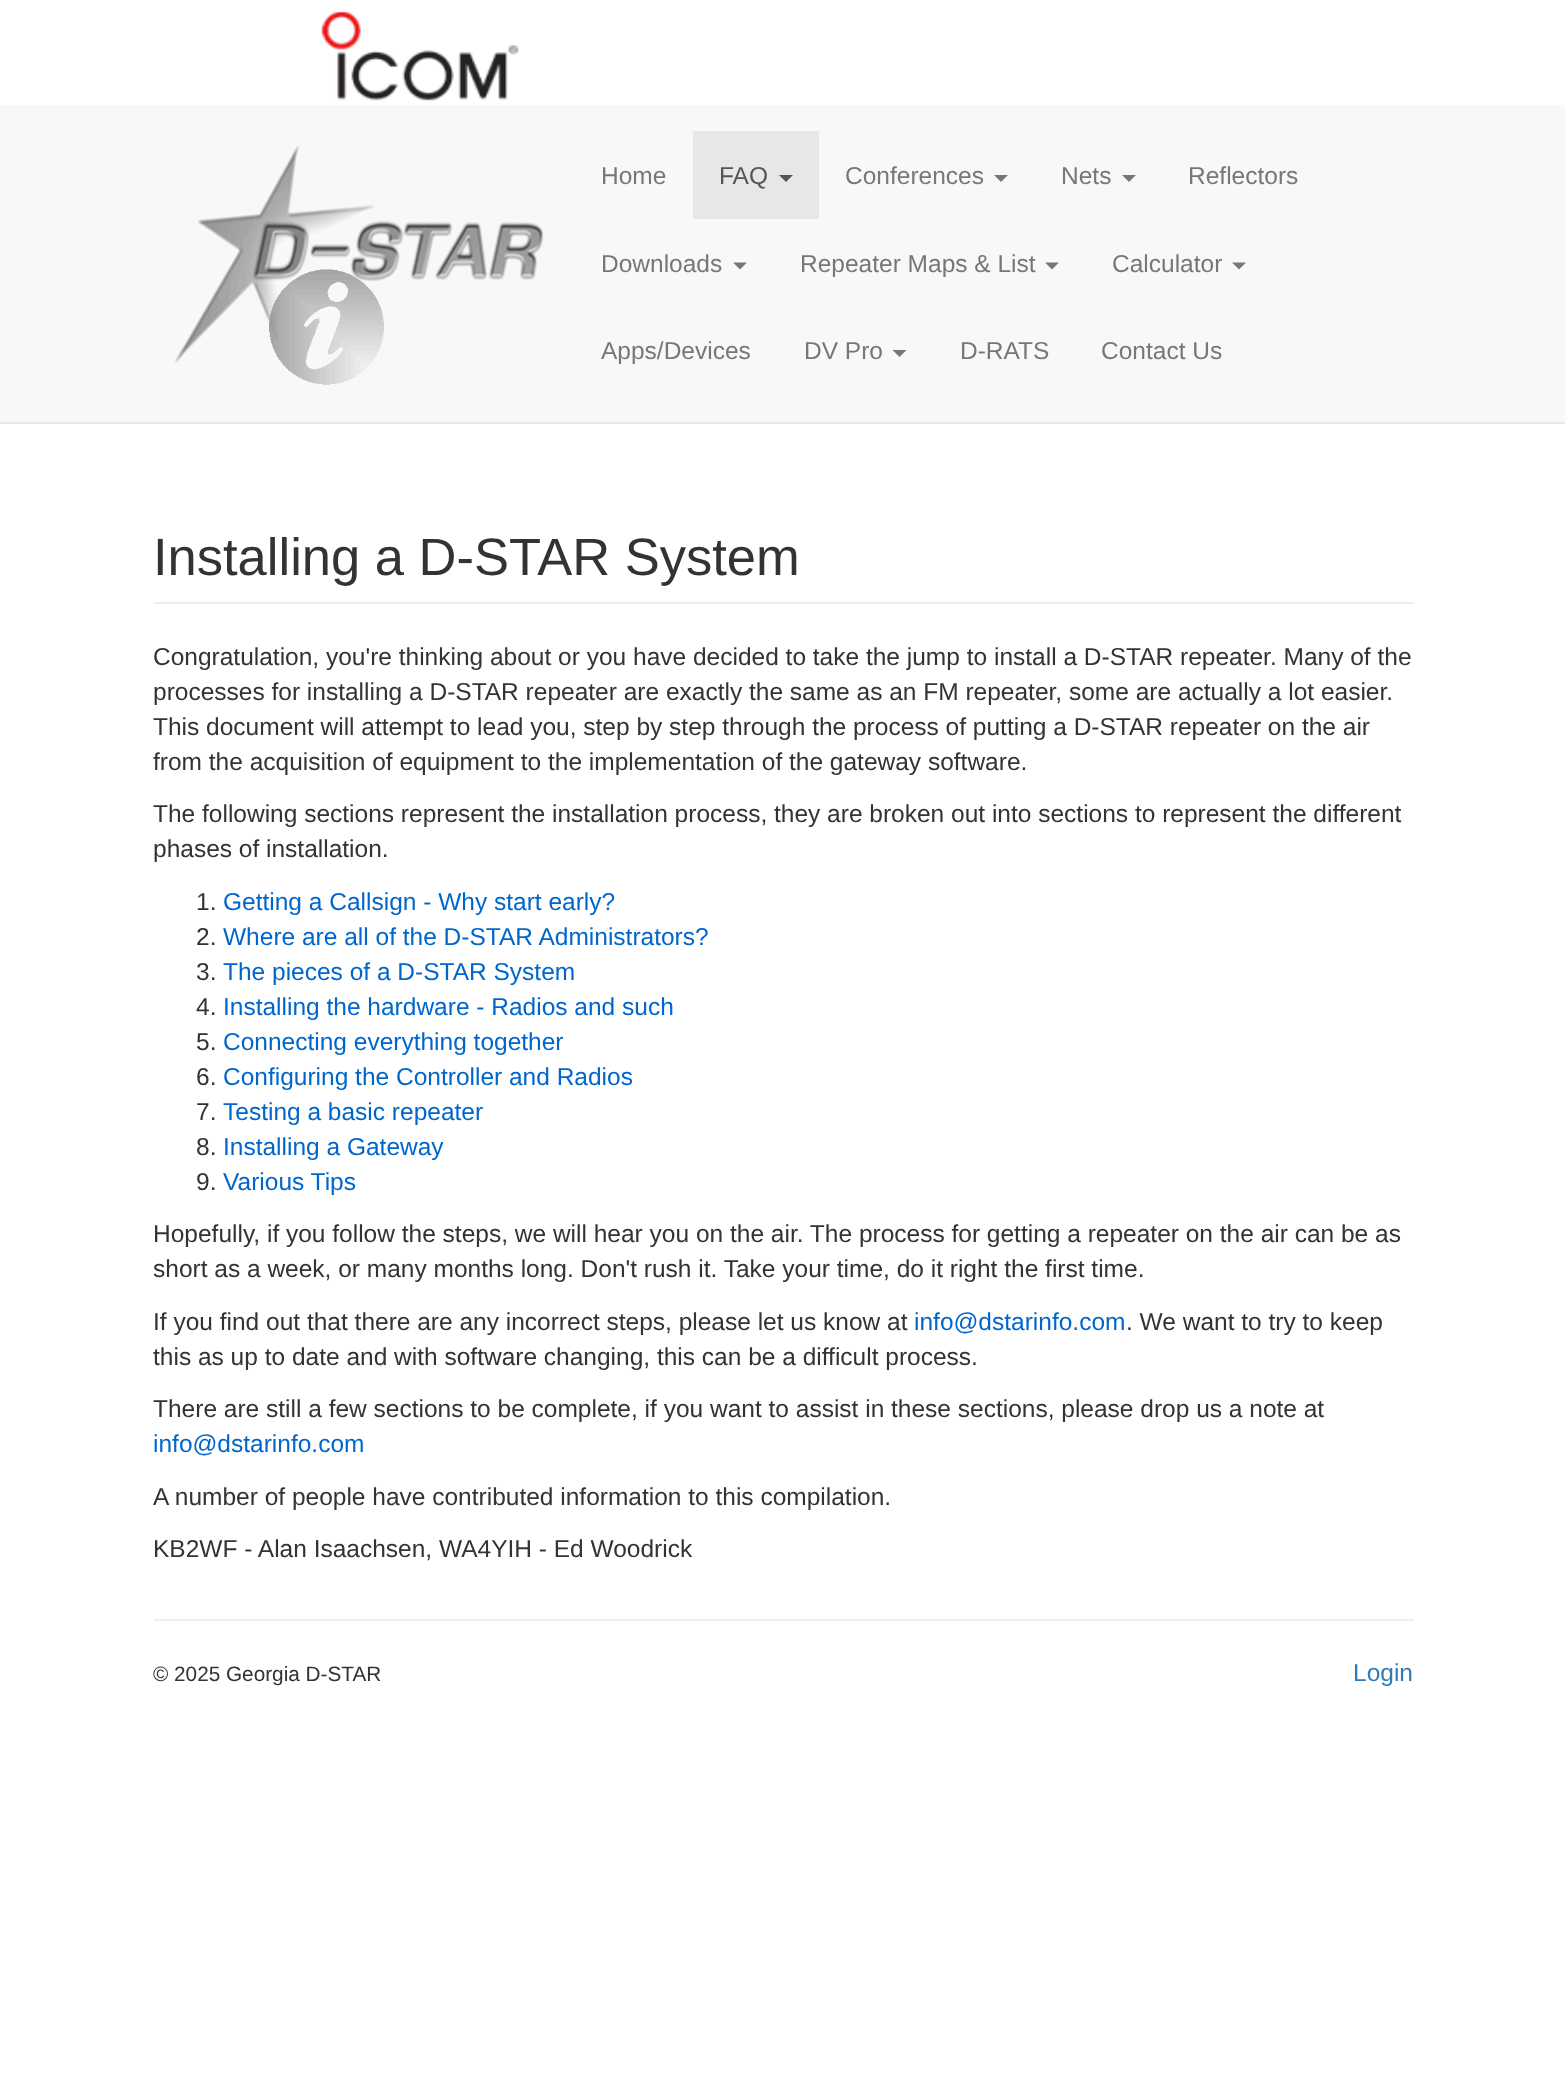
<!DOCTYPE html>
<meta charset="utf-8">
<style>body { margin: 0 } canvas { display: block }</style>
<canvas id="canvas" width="1565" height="2096"></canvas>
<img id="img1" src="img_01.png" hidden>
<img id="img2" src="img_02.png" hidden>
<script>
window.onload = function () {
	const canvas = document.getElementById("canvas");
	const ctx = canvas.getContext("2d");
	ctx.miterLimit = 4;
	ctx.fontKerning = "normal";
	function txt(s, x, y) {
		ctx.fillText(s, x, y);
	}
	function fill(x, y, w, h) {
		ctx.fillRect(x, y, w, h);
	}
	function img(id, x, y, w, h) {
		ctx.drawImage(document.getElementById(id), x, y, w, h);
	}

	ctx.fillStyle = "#FFFFFF";
	fill(0, 0, 1565, 2096);
	img("img1", 321, 11, 198, 90);
	ctx.fillStyle = "#F8F8F8";
	fill(0, 105, 1565, 317);
	ctx.fillStyle = "#E7E7E7";
	fill(0, 422, 1565, 2);
	img("img2", 174, 146, 370, 239);
	fill(693, 131, 126, 88);
	ctx.fillStyle = "#555555";
	ctx.beginPath();
	ctx.moveTo(779, 175);
	ctx.lineTo(793, 175);
	ctx.lineTo(786, 182);
	ctx.closePath();
	ctx.fill();
	ctx.fillStyle = "#777777";
	ctx.beginPath();
	ctx.moveTo(994, 175);
	ctx.lineTo(1008, 175);
	ctx.lineTo(1001, 182);
	ctx.closePath();
	ctx.fill();
	ctx.beginPath();
	ctx.moveTo(1122, 175);
	ctx.lineTo(1136, 175);
	ctx.lineTo(1129, 182);
	ctx.closePath();
	ctx.fill();
	ctx.beginPath();
	ctx.moveTo(733, 262.5);
	ctx.lineTo(747, 262.5);
	ctx.lineTo(740, 269.5);
	ctx.closePath();
	ctx.fill();
	ctx.beginPath();
	ctx.moveTo(1045, 262.5);
	ctx.lineTo(1059, 262.5);
	ctx.lineTo(1052, 269.5);
	ctx.closePath();
	ctx.fill();
	ctx.beginPath();
	ctx.moveTo(1232, 262.5);
	ctx.lineTo(1246, 262.5);
	ctx.lineTo(1239, 269.5);
	ctx.closePath();
	ctx.fill();
	ctx.beginPath();
	ctx.moveTo(892.5, 350);
	ctx.lineTo(906.5, 350);
	ctx.lineTo(899.5, 357);
	ctx.closePath();
	ctx.fill();
	ctx.fillStyle = "#EEEEEE";
	fill(154, 602, 1260, 2);
	fill(154, 1619, 1260, 2);
	ctx.font = "24.5px Liberation Sans";
	ctx.fillStyle = "#777777";
	txt("Home", 601, 184);
	ctx.fillStyle = "#555555";
	txt("FAQ", 719, 184);
	ctx.fillStyle = "#777777";
	txt("Conferences", 845, 184);
	txt("Nets", 1061, 184);
	txt("Reflectors", 1188, 184);
	txt("Downloads", 601, 272);
	txt("Repeater Maps & List", 800, 272);
	txt("Calculator", 1112, 272);
	txt("Apps/Devices", 601, 359);
	txt("DV Pro", 804, 359);
	txt("D-RATS", 960, 359);
	txt("Contact Us", 1101, 359);
	ctx.font = "52.5px Liberation Sans";
	ctx.fillStyle = "#333333";
	txt("Installing a D-STAR System", 153, 575);
	ctx.font = "24.5px Liberation Sans";
	txt("Congratulation, you're thinking about or you have decided to take the jump to install a D-STAR repeater. Many of the", 153, 665);
	txt("processes for installing a D-STAR repeater are exactly the same as an FM repeater, some are actually a lot easier.", 153, 700);
	txt("This document will attempt to lead you, step by step through the process of putting a D-STAR repeater on the air", 153, 735);
	txt("from the acquisition of equipment to the implementation of the gateway software.", 153, 770);
	txt("The following sections represent the installation process, they are broken out into sections to represent the different", 153, 822);
	txt("phases of installation.", 153, 857);
	txt("1.", 196, 910);
	ctx.fillStyle = "#0066CC";
	txt("Getting a Callsign - Why start early?", 223, 910);
	ctx.fillStyle = "#333333";
	txt("2.", 196, 945);
	ctx.fillStyle = "#0066CC";
	txt("Where are all of the D-STAR Administrators?", 223, 945);
	ctx.fillStyle = "#333333";
	txt("3.", 196, 980);
	ctx.fillStyle = "#0066CC";
	txt("The pieces of a D-STAR System", 223, 980);
	ctx.fillStyle = "#333333";
	txt("4.", 196, 1015);
	ctx.fillStyle = "#0066CC";
	txt("Installing the hardware - Radios and such", 223, 1015);
	ctx.fillStyle = "#333333";
	txt("5.", 196, 1050);
	ctx.fillStyle = "#0066CC";
	txt("Connecting everything together", 223, 1050);
	ctx.fillStyle = "#333333";
	txt("6.", 196, 1085);
	ctx.fillStyle = "#0066CC";
	txt("Configuring the Controller and Radios", 223, 1085);
	ctx.fillStyle = "#333333";
	txt("7.", 196, 1120);
	ctx.fillStyle = "#0066CC";
	txt("Testing a basic repeater", 223, 1120);
	ctx.fillStyle = "#333333";
	txt("8.", 196, 1155);
	ctx.fillStyle = "#0066CC";
	txt("Installing a Gateway", 223, 1155);
	ctx.fillStyle = "#333333";
	txt("9.", 196, 1190);
	ctx.fillStyle = "#0066CC";
	txt("Various Tips", 223, 1190);
	ctx.fillStyle = "#333333";
	txt("Hopefully, if you follow the steps, we will hear you on the air. The process for getting a repeater on the air can be as", 153, 1242);
	txt("short as a week, or many months long. Don't rush it. Take your time, do it right the first time.", 153, 1277);
	txt("If you find out that there are any incorrect steps, please let us know at", 153, 1330);
	ctx.fillStyle = "#0066CC";
	txt("info@dstarinfo.com", 914, 1330);
	ctx.fillStyle = "#333333";
	txt(". We want to try to keep", 1126, 1330);
	txt("this as up to date and with software changing, this can be a difficult process.", 153, 1365);
	txt("There are still a few sections to be complete, if you want to assist in these sections, please drop us a note at", 153, 1417);
	ctx.fillStyle = "#0066CC";
	txt("info@dstarinfo.com", 153, 1452);
	ctx.fillStyle = "#333333";
	txt("A number of people have contributed information to this compilation.", 153, 1505);
	txt("KB2WF - Alan Isaachsen, WA4YIH - Ed Woodrick", 153, 1557);
	ctx.font = "20.75px Liberation Sans";
	txt("© 2025 Georgia D-STAR", 153, 1681);
	ctx.font = "24.5px Liberation Sans";
	ctx.fillStyle = "#337AB7";
	txt("Login", 1353, 1681);
};
</script>
